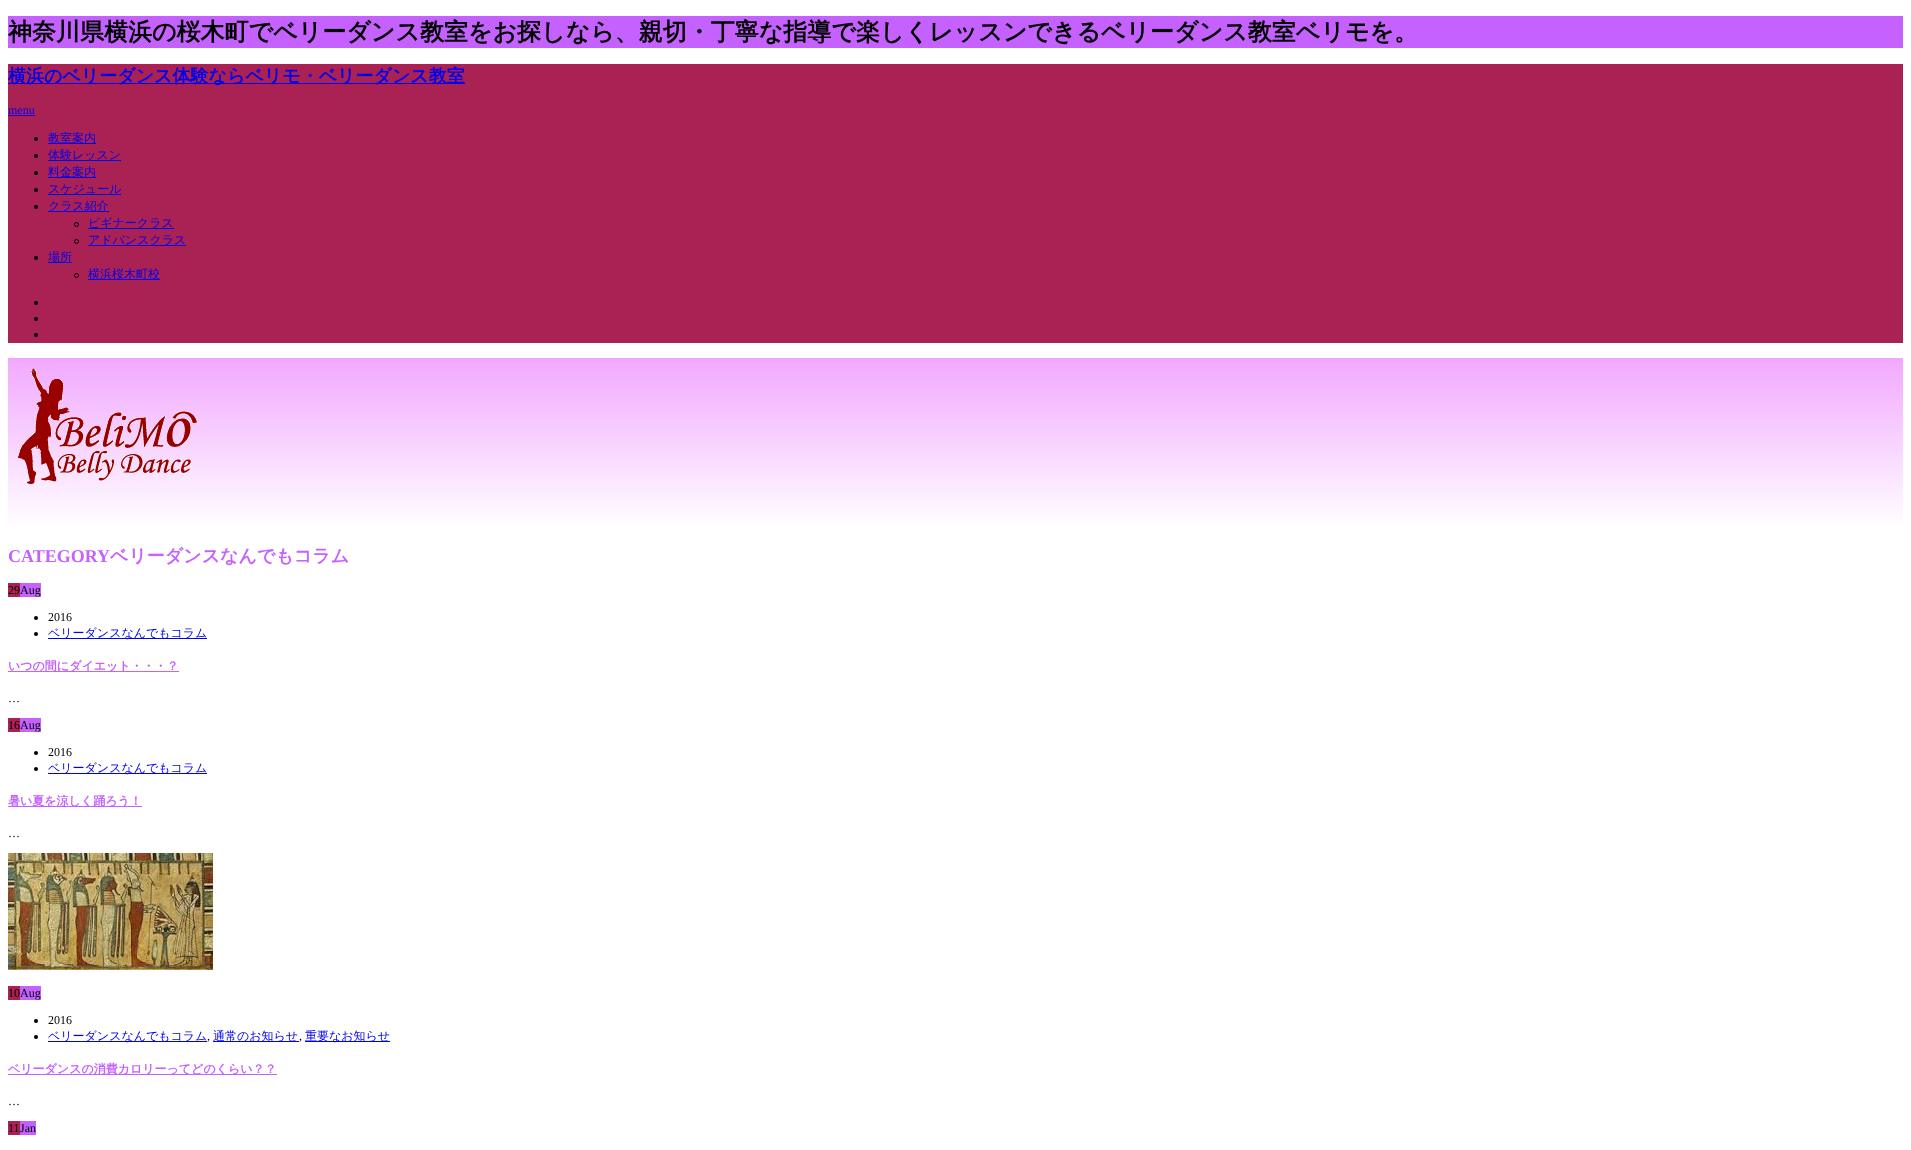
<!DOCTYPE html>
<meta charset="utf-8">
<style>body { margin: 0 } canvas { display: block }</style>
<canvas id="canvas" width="1911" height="1150"></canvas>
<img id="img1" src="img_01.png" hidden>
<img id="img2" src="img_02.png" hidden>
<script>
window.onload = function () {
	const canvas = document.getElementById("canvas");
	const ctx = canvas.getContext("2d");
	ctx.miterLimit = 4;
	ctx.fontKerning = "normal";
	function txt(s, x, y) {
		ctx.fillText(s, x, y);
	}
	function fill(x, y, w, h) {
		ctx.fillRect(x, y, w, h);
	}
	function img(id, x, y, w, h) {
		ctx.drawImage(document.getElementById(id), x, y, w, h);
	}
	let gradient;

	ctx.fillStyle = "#FFFFFF";
	fill(0, 0, 1911, 1150);
	ctx.fillStyle = "#C561FF";
	fill(8, 16, 1895, 32);
	ctx.fillStyle = "#AA2254";
	fill(8, 64, 1895, 279);
	ctx.fillStyle = "#0000EE";
	fill(8, 83, 457, 1);
	fill(8, 115, 27, 1);
	ctx.fillStyle = "#000000";
	ctx.beginPath();
	ctx.arc(36, 139, 2, 0, Math.PI * 2);
	ctx.fill();
	ctx.fillStyle = "#0000EE";
	fill(48, 143, 48, 1);
	ctx.fillStyle = "#000000";
	ctx.beginPath();
	ctx.arc(36, 156, 2, 0, Math.PI * 2);
	ctx.fill();
	ctx.fillStyle = "#0000EE";
	fill(48, 160, 73, 1);
	ctx.fillStyle = "#000000";
	ctx.beginPath();
	ctx.arc(36, 173, 2, 0, Math.PI * 2);
	ctx.fill();
	ctx.fillStyle = "#0000EE";
	fill(48, 177, 48, 1);
	ctx.fillStyle = "#000000";
	ctx.beginPath();
	ctx.arc(36, 190, 2, 0, Math.PI * 2);
	ctx.fill();
	ctx.fillStyle = "#0000EE";
	fill(48, 194, 73, 1);
	ctx.fillStyle = "#000000";
	ctx.beginPath();
	ctx.arc(36, 207, 2, 0, Math.PI * 2);
	ctx.fill();
	ctx.fillStyle = "#0000EE";
	fill(48, 211, 61, 1);
	ctx.beginPath();
	ctx.arc(76.5, 224.5, 2, 0, Math.PI * 2);
	ctx.strokeStyle = "#000000";
	ctx.stroke();
	fill(88, 228, 86, 1);
	ctx.beginPath();
	ctx.arc(76.5, 241.5, 2, 0, Math.PI * 2);
	ctx.stroke();
	fill(88, 245, 98, 1);
	ctx.fillStyle = "#000000";
	ctx.beginPath();
	ctx.arc(36, 258, 2, 0, Math.PI * 2);
	ctx.fill();
	ctx.fillStyle = "#0000EE";
	fill(48, 262, 24, 1);
	ctx.beginPath();
	ctx.arc(76.5, 275.5, 2, 0, Math.PI * 2);
	ctx.stroke();
	fill(88, 279, 72, 1);
	ctx.fillStyle = "#000000";
	ctx.beginPath();
	ctx.arc(36, 303, 2, 0, Math.PI * 2);
	ctx.fill();
	ctx.beginPath();
	ctx.arc(36, 319, 2, 0, Math.PI * 2);
	ctx.fill();
	ctx.beginPath();
	ctx.arc(36, 335, 2, 0, Math.PI * 2);
	ctx.fill();
	gradient = ctx.createLinearGradient(956, 358, 956, 529);
	gradient.addColorStop(0, "#F1A8FF");
	gradient.addColorStop(1, "#FFFFFF");
	ctx.fillStyle = gradient;
	fill(8, 358, 1895, 166);
	img("img1", 18, 368, 179, 116);
	ctx.fillStyle = "#AA2254";
	fill(8, 583, 12, 14);
	ctx.fillStyle = "#C561FF";
	fill(20, 583, 21, 14);
	ctx.fillStyle = "#000000";
	ctx.beginPath();
	ctx.arc(36, 618, 2, 0, Math.PI * 2);
	ctx.fill();
	ctx.beginPath();
	ctx.arc(36, 634, 2, 0, Math.PI * 2);
	ctx.fill();
	ctx.fillStyle = "#0000EE";
	fill(48, 638, 159, 1);
	ctx.fillStyle = "#C561FF";
	fill(8, 671, 171, 1);
	ctx.fillStyle = "#AA2254";
	fill(8, 718, 12, 14);
	ctx.fillStyle = "#C561FF";
	fill(20, 718, 21, 14);
	ctx.fillStyle = "#000000";
	ctx.beginPath();
	ctx.arc(36, 753, 2, 0, Math.PI * 2);
	ctx.fill();
	ctx.beginPath();
	ctx.arc(36, 769, 2, 0, Math.PI * 2);
	ctx.fill();
	ctx.fillStyle = "#0000EE";
	fill(48, 773, 159, 1);
	ctx.fillStyle = "#C561FF";
	fill(8, 806, 134, 1);
	img("img2", 8, 853, 205, 117);
	ctx.fillStyle = "#AA2254";
	fill(8, 986, 12, 14);
	ctx.fillStyle = "#C561FF";
	fill(20, 986, 21, 14);
	ctx.fillStyle = "#000000";
	ctx.beginPath();
	ctx.arc(36, 1021, 2, 0, Math.PI * 2);
	ctx.fill();
	ctx.beginPath();
	ctx.arc(36, 1037, 2, 0, Math.PI * 2);
	ctx.fill();
	ctx.fillStyle = "#0000EE";
	fill(48, 1041, 159, 1);
	fill(213, 1041, 86, 1);
	fill(305, 1041, 85, 1);
	ctx.fillStyle = "#C561FF";
	fill(8, 1074, 269, 1);
	ctx.fillStyle = "#AA2254";
	fill(8, 1121, 12, 14);
	ctx.fillStyle = "#C561FF";
	fill(20, 1121, 16, 14);
	ctx.font = "bold 24px WenQuanYi Zen Hei";
	ctx.fillStyle = "#000000";
	txt("神奈川県横浜の桜木町でベリーダンス教室をお探しなら、親切・丁寧な指導で楽しくレッスンできるベリーダンス教室ベリモを。", 8, 40);
	ctx.font = "bold 18px WenQuanYi Zen Hei";
	ctx.fillStyle = "#0000EE";
	txt("横浜のベリーダンス体験ならベリモ・ベリーダンス教室", 8, 82);
	ctx.font = "12px Liberation Serif";
	txt("menu", 8, 114);
	ctx.font = "500 12px WenQuanYi Zen Hei";
	txt("教室案内", 48, 142);
	txt("体験レッスン", 48, 159);
	txt("料金案内", 48, 176);
	txt("スケジュール", 48, 193);
	txt("クラス紹介", 48, 210);
	txt("ビギナークラス", 88, 227);
	txt("アドバンスクラス", 88, 244);
	txt("場所", 48, 261);
	txt("横浜桜木町校", 88, 278);
	ctx.font = "bold 18px Liberation Serif";
	ctx.fillStyle = "#C561FF";
	txt("CATEGORY", 8, 562);
	ctx.font = "bold 18px WenQuanYi Zen Hei";
	txt("ベリーダンスなんでもコラム", 110, 562);
	ctx.font = "12px Liberation Serif";
	ctx.fillStyle = "#000000";
	txt("29", 8, 594);
	txt("Aug", 20, 594);
	txt("2016", 48, 621);
	ctx.font = "500 12px WenQuanYi Zen Hei";
	ctx.fillStyle = "#0000EE";
	txt("ベリーダンスなんでもコラム", 48, 637);
	ctx.font = "bold 12px WenQuanYi Zen Hei";
	ctx.fillStyle = "#C561FF";
	txt("いつの間にダイエット・・・？", 8, 670);
	ctx.font = "12px Liberation Serif";
	ctx.fillStyle = "#000000";
	txt("…", 8, 702);
	txt("16", 8, 729);
	txt("Aug", 20, 729);
	txt("2016", 48, 756);
	ctx.font = "500 12px WenQuanYi Zen Hei";
	ctx.fillStyle = "#0000EE";
	txt("ベリーダンスなんでもコラム", 48, 772);
	ctx.font = "bold 12px WenQuanYi Zen Hei";
	ctx.fillStyle = "#C561FF";
	txt("暑い夏を涼しく踊ろう！", 8, 805);
	ctx.font = "12px Liberation Serif";
	ctx.fillStyle = "#000000";
	txt("…", 8, 837);
	txt("10", 8, 997);
	txt("Aug", 20, 997);
	txt("2016", 48, 1024);
	ctx.font = "500 12px WenQuanYi Zen Hei";
	ctx.fillStyle = "#0000EE";
	txt("ベリーダンスなんでもコラム", 48, 1040);
	txt("通常のお知らせ", 213, 1040);
	txt("重要なお知らせ", 305, 1040);
	ctx.font = "12px Liberation Serif";
	ctx.fillStyle = "#000000";
	txt(",", 207, 1040);
	txt(",", 299, 1040);
	ctx.font = "bold 12px WenQuanYi Zen Hei";
	ctx.fillStyle = "#C561FF";
	txt("ベリーダンスの消費カロリーってどのくらい？？", 8, 1073);
	ctx.font = "12px Liberation Serif";
	ctx.fillStyle = "#000000";
	txt("…", 8, 1105);
	txt("11", 8, 1132);
	txt("Jan", 20, 1132);
};
</script>
